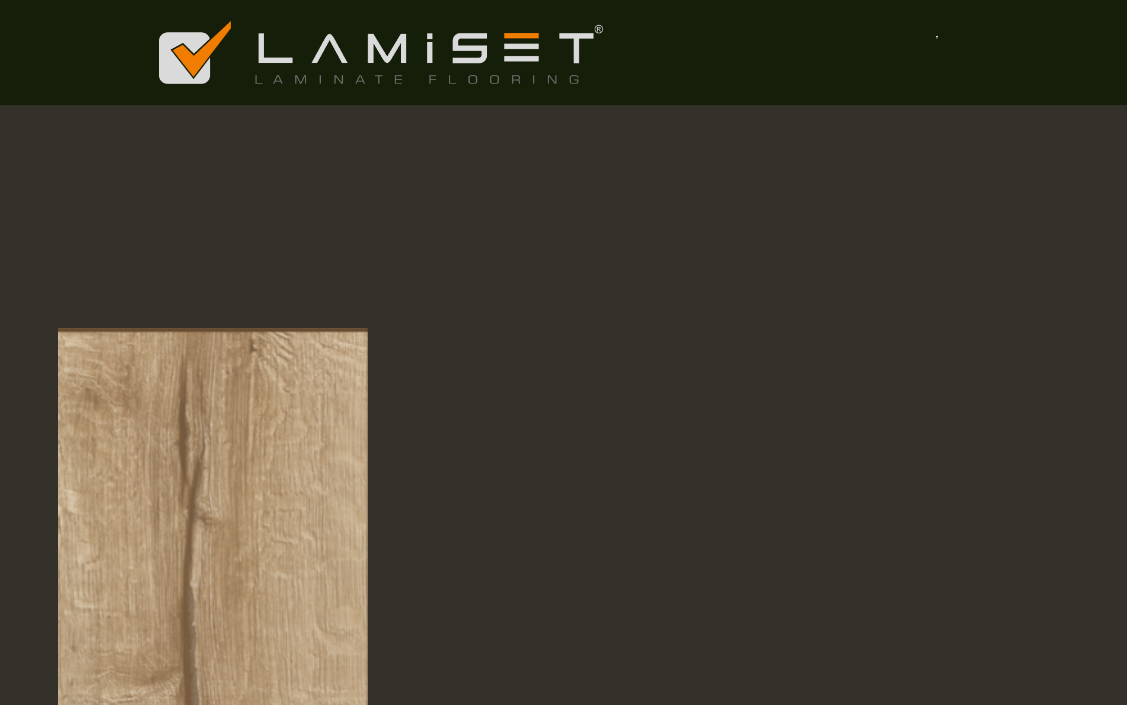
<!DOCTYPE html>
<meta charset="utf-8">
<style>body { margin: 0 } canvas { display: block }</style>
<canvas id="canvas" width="1127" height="705"></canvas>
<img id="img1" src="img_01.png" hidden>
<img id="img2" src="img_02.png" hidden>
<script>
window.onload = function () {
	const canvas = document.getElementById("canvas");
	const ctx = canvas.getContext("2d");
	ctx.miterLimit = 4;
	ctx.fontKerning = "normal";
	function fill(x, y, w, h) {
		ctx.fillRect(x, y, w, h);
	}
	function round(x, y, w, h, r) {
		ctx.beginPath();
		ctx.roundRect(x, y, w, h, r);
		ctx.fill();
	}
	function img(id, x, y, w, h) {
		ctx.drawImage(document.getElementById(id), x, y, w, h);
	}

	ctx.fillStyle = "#141E08";
	fill(0, 0, 1127, 705);
	img("img1", 159, 21, 444, 63);
	ctx.fillStyle = "#FFFFFF";
	round(936, 36, 2, 1, 0.5);
	ctx.fillStyle = "#4C5443";
	fill(936, 37, 2, 2);
	ctx.fillStyle = "#333129";
	fill(0, 105, 1127, 600);
	img("img2", 58, 328, 310, 377);
};
</script>
